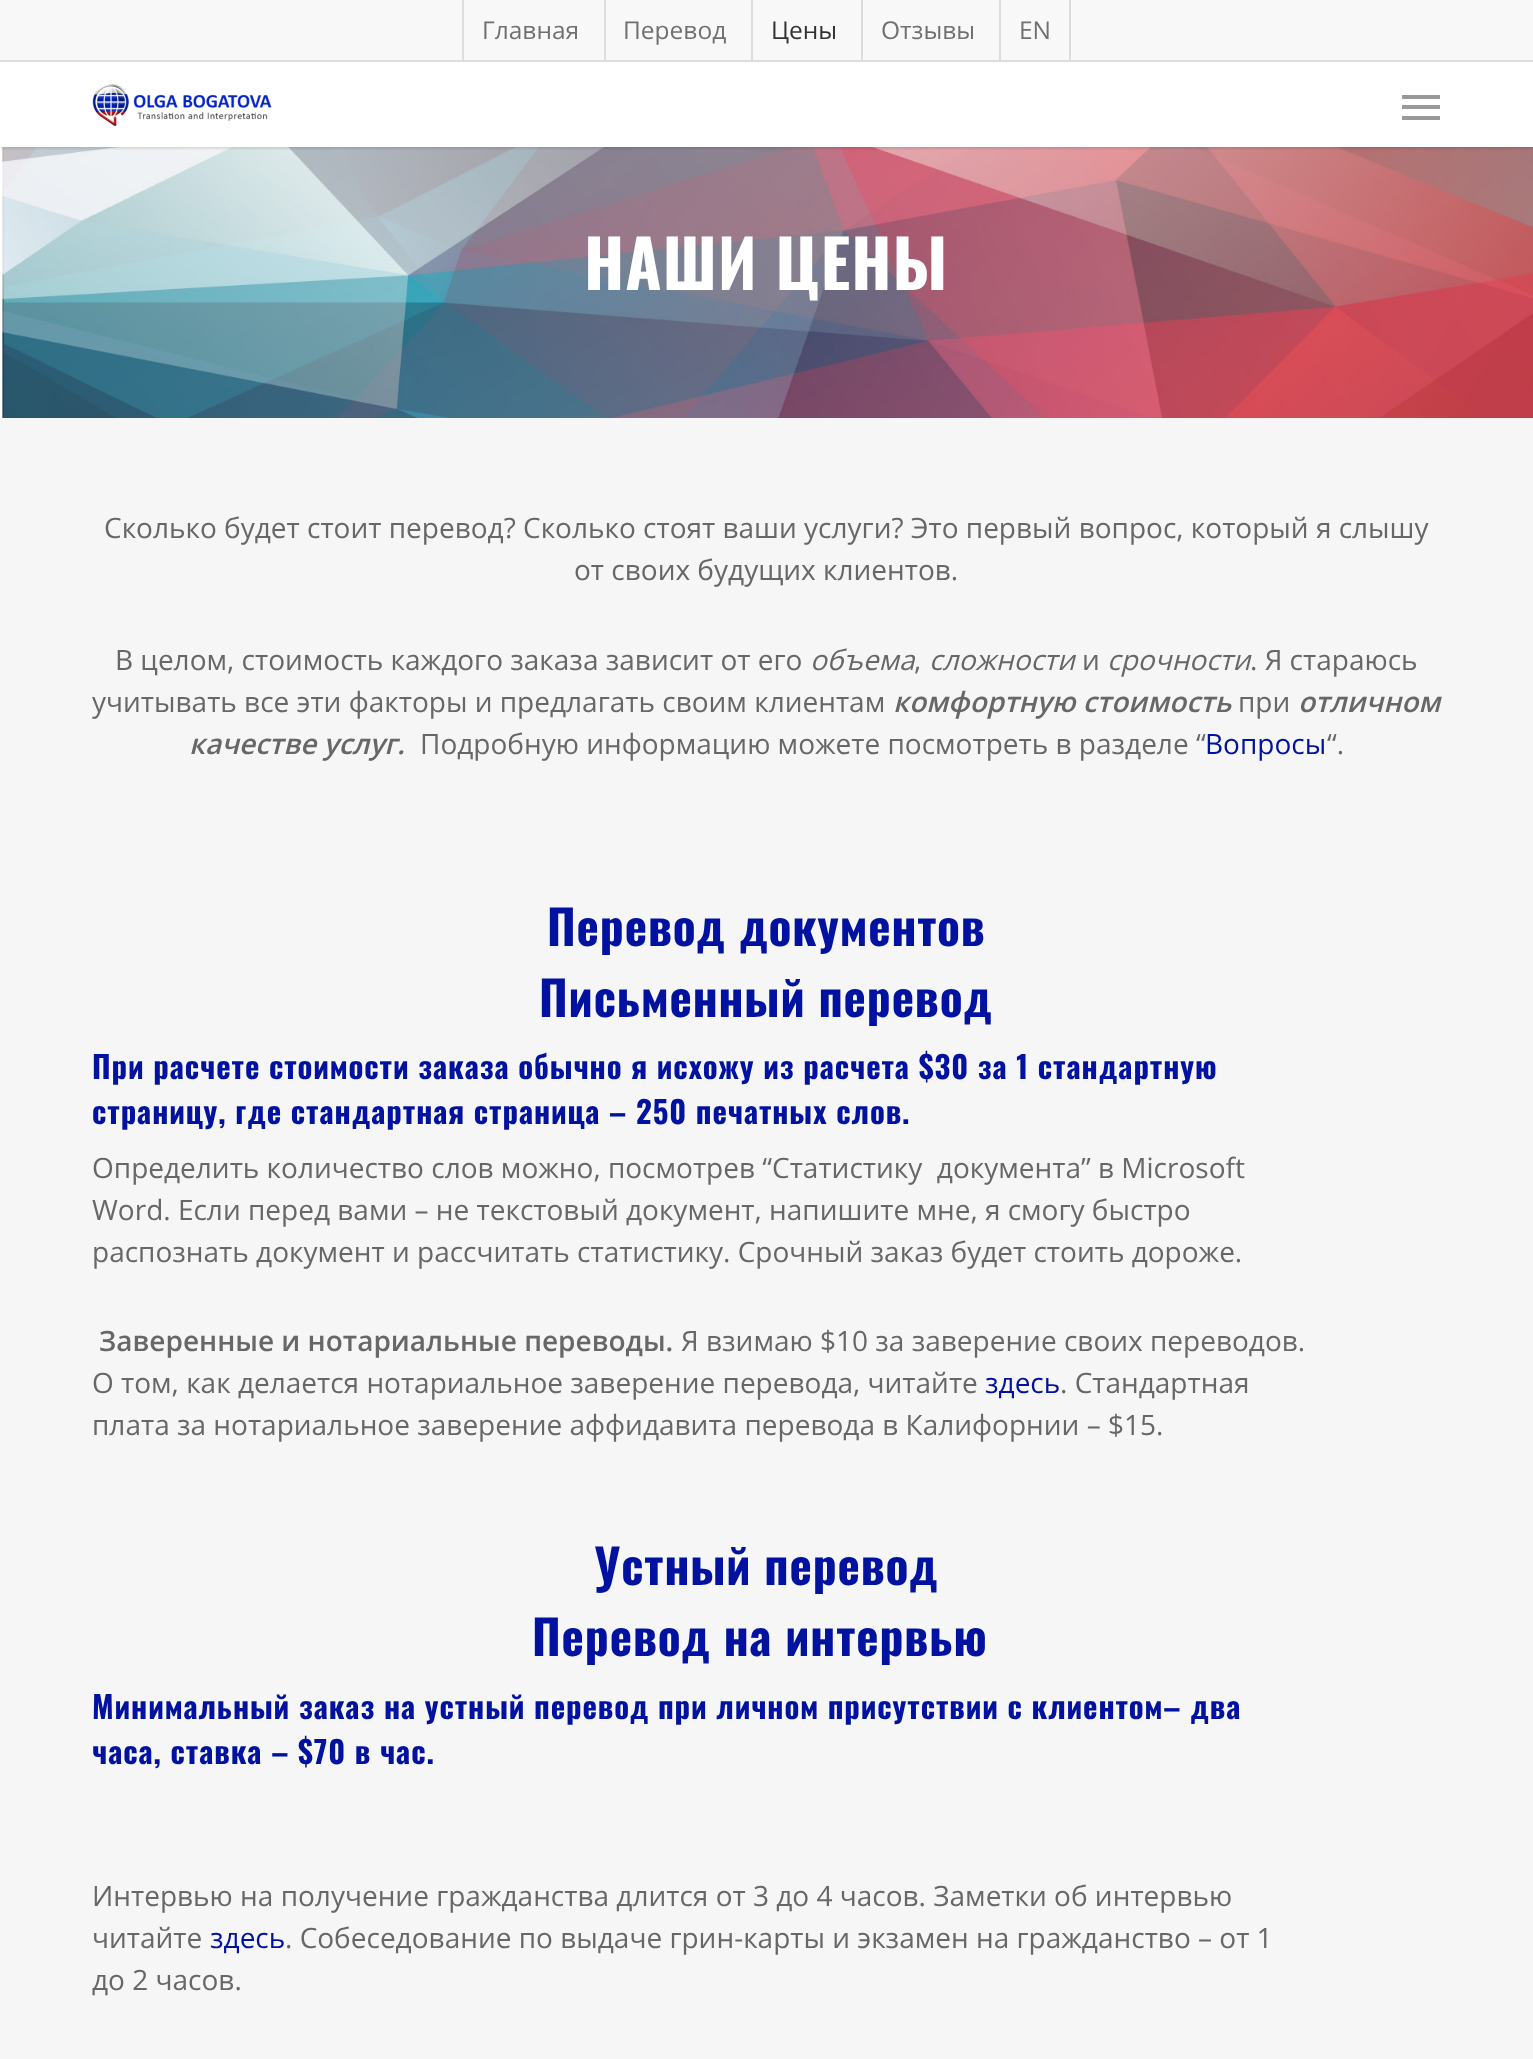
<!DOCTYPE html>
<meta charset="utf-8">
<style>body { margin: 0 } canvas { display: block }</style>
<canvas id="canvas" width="1533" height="2059"></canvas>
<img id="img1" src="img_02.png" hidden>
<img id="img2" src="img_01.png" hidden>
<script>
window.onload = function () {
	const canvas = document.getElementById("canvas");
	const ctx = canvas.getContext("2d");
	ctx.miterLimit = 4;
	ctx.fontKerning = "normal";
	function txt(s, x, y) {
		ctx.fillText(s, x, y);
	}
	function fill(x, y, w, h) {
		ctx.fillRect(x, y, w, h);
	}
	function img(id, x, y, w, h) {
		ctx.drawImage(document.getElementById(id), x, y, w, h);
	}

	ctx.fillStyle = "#FFFFFF";
	fill(0, 0, 1533, 2059);
	img("img1", 0, 147, 1533, 271);
	ctx.save();
	ctx.beginPath();
	ctx.rect(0, 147, 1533, 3);
	ctx.clip();
	ctx.fillStyle = "rgba(0, 0, 0, 0.22)";
	ctx.filter = "blur(2.5px)";
	ctx.beginPath();
	ctx.rect(0, 0, 1533, 147);
	ctx.fill();
	ctx.filter = "none";
	ctx.restore();
	ctx.fillStyle = "#F8F8F8";
	fill(0, 0, 1533, 60);
	ctx.fillStyle = "#DDDDDD";
	fill(0, 60, 1533, 2);
	fill(462, 0, 2, 60);
	fill(604, 0, 2, 60);
	fill(751, 0, 2, 60);
	fill(861, 0, 2, 60);
	fill(1069, 0, 2, 60);
	fill(999, 0, 2, 60);
	img("img2", 92, 84, 180, 42);
	ctx.fillStyle = "#999999";
	fill(1402, 95, 38, 4);
	fill(1402, 116, 38, 4);
	fill(1402, 105, 38, 4);
	ctx.fillStyle = "#F6F6F6";
	fill(0, 418, 1533, 1641);
	ctx.font = "24.5px Open Sans";
	ctx.fillStyle = "#707070";
	txt("Главная", 482, 39);
	txt("Перевод", 623, 39);
	ctx.fillStyle = "#323232";
	txt("Цены", 771, 39);
	ctx.fillStyle = "#707070";
	txt("Отзывы", 881, 39);
	txt("EN", 1019, 39);
	ctx.letterSpacing = "0.88px";
	ctx.font = "bold 66px Oswald";
	ctx.fillStyle = "#FFFFFF";
	txt("НАШИ ЦЕНЫ", 584, 290);
	ctx.letterSpacing = "0px";
	ctx.font = "28px Open Sans";
	ctx.fillStyle = "#676767";
	txt("Сколько будет стоит перевод? Сколько стоят ваши услуги? Это первый вопрос, который я слышу", 104, 538);
	txt("от своих будущих клиентов.", 574, 580);
	txt("В целом, стоимость каждого заказа зависит от его", 115, 670);
	ctx.font = "italic 28px Open Sans";
	txt("объема", 810, 670);
	ctx.font = "28px Open Sans";
	txt(",", 914, 670);
	ctx.font = "italic 28px Open Sans";
	txt("сложности", 929, 670);
	ctx.font = "28px Open Sans";
	txt("и", 1082, 670);
	ctx.font = "italic 28px Open Sans";
	txt("срочности", 1107, 670);
	ctx.font = "28px Open Sans";
	txt(". Я стараюсь", 1250, 670);
	txt("учитывать все эти факторы и предлагать своим клиентам", 92, 712);
	ctx.font = "italic 600 28px Open Sans";
	txt("комфортную стоимость", 893, 712);
	ctx.font = "28px Open Sans";
	txt("при", 1238, 712);
	ctx.font = "italic 600 28px Open Sans";
	txt("отличном", 1298, 712);
	txt("качестве услуг.", 189, 754);
	ctx.font = "28px Open Sans";
	txt("Подробную информацию можете посмотреть в разделе “", 420, 754);
	ctx.fillStyle = "#00129F";
	txt("Вопросы", 1205, 754);
	ctx.fillStyle = "#676767";
	txt("“.", 1327, 754);
	ctx.letterSpacing = "0.88px";
	ctx.font = "bold 47.5px Oswald";
	ctx.fillStyle = "#00129F";
	txt("Перевод документов", 547, 946);
	txt("Письменный перевод", 539, 1017);
	ctx.font = "bold 30.8px Oswald";
	txt("При расчете стоимости заказа обычно я исхожу из расчета $30 за 1 стандартную", 92, 1079);
	txt("страницу, где стандартная страница – 250 печатных слов.", 92, 1124);
	ctx.letterSpacing = "0px";
	ctx.font = "28px Open Sans";
	ctx.fillStyle = "#676767";
	txt("Определить количество слов можно, посмотрев “Статистику  документа” в Microsoft", 92, 1178);
	txt("Word. Если перед вами – не текстовый документ, напишите мне, я смогу быстро", 92, 1220);
	txt("распознать документ и рассчитать статистику. Срочный заказ будет стоить дороже.", 92, 1262);
	ctx.font = "600 28px Open Sans";
	txt("Заверенные и нотариальные переводы.", 99, 1351);
	ctx.font = "28px Open Sans";
	txt("Я взимаю $10 за заверение своих переводов.", 681, 1351);
	txt("О том, как делается нотариальное заверение перевода, читайте", 92, 1393);
	ctx.fillStyle = "#00129F";
	txt("здесь", 985, 1393);
	ctx.fillStyle = "#676767";
	txt(". Стандартная", 1060, 1393);
	txt("плата за нотариальное заверение аффидавита перевода в Калифорнии – $15.", 92, 1435);
	ctx.letterSpacing = "0.88px";
	ctx.font = "bold 47.5px Oswald";
	ctx.fillStyle = "#00129F";
	txt("Устный перевод", 594, 1585);
	txt("Перевод на интервью", 532, 1656);
	ctx.font = "bold 30.8px Oswald";
	txt("Минимальный заказ на устный перевод при личном присутствии с клиентом– два", 92, 1719);
	txt("часа, ставка – $70 в час.", 92, 1764);
	ctx.letterSpacing = "0px";
	ctx.font = "28px Open Sans";
	ctx.fillStyle = "#676767";
	txt("Интервью на получение гражданства длится от 3 до 4 часов. Заметки об интервью", 92, 1906);
	txt("читайте", 92, 1948);
	ctx.fillStyle = "#00129F";
	txt("здесь", 210, 1948);
	ctx.fillStyle = "#676767";
	txt(". Собеседование по выдаче грин-карты и экзамен на гражданство – от 1", 285, 1948);
	txt("до 2 часов.", 92, 1990);
};
</script>
